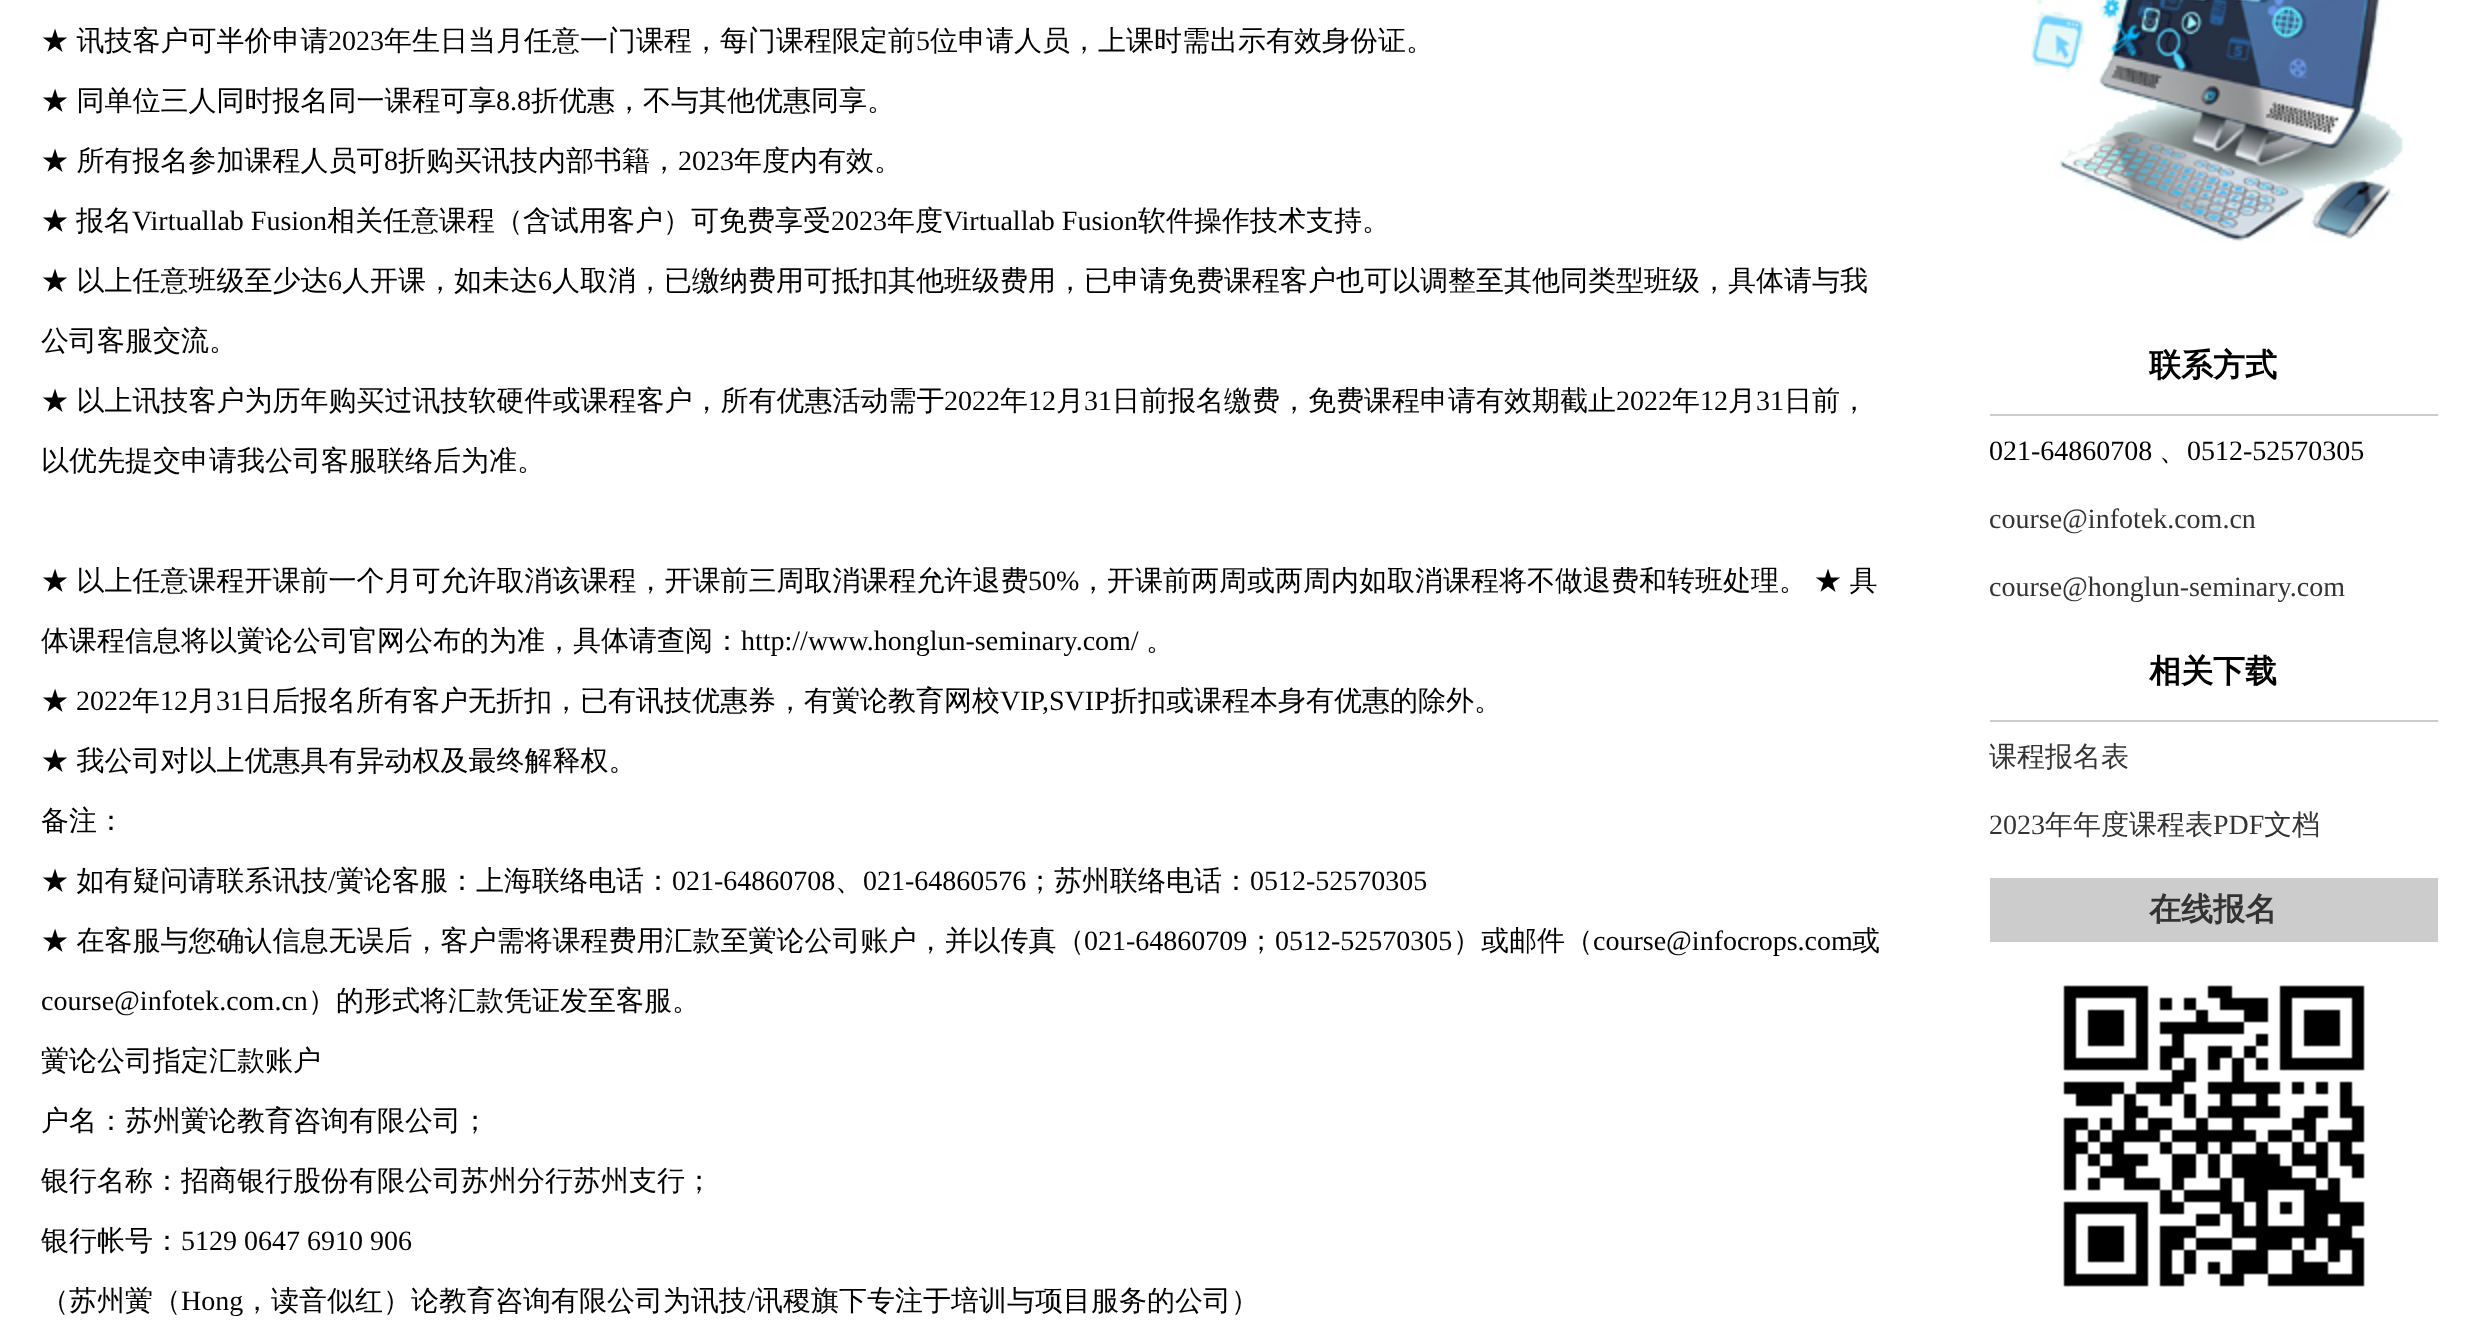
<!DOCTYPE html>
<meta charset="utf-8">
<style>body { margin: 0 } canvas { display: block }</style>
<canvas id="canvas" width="2482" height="1320"></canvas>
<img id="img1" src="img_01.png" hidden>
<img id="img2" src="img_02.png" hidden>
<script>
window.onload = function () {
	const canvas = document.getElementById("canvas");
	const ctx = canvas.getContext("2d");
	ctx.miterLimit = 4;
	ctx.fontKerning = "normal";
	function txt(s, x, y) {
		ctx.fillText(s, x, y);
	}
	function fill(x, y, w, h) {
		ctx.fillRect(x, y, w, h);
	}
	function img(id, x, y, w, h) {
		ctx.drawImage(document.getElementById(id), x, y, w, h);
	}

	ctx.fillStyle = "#FFFFFF";
	fill(0, 0, 2482, 1320);
	img("img1", 2031, 0, 372, 243);
	ctx.fillStyle = "#CCCCCC";
	fill(1990, 414, 448, 2);
	fill(1990, 720, 448, 2);
	fill(1990, 878, 448, 64);
	img("img2", 2063, 985, 302, 302);
	ctx.wordSpacing = "-1px";
	ctx.font = "500 28px WenQuanYi Zen Hei";
	ctx.fillStyle = "#000000";
	txt("★ 讯技客户可半价申请", 41, 50);
	ctx.wordSpacing = "0px";
	ctx.font = "28px Liberation Serif";
	txt("2023", 328, 50);
	ctx.font = "500 28px WenQuanYi Zen Hei";
	txt("年生日当月任意一门课程，每门课程限定前", 384, 50);
	ctx.font = "28px Liberation Serif";
	txt("5", 916, 50);
	ctx.font = "500 28px WenQuanYi Zen Hei";
	txt("位申请人员，上课时需出示有效身份证。", 930, 50);
	ctx.wordSpacing = "-1px";
	txt("★ 同单位三人同时报名同一课程可享", 41, 110);
	ctx.wordSpacing = "0px";
	ctx.font = "28px Liberation Serif";
	txt("8.8", 496, 110);
	ctx.font = "500 28px WenQuanYi Zen Hei";
	txt("折优惠，不与其他优惠同享。", 531, 110);
	ctx.wordSpacing = "-1px";
	txt("★ 所有报名参加课程人员可", 41, 170);
	ctx.wordSpacing = "0px";
	ctx.font = "28px Liberation Serif";
	txt("8", 384, 170);
	ctx.font = "500 28px WenQuanYi Zen Hei";
	txt("折购买讯技内部书籍，", 398, 170);
	ctx.font = "28px Liberation Serif";
	txt("2023", 678, 170);
	ctx.font = "500 28px WenQuanYi Zen Hei";
	txt("年度内有效。", 734, 170);
	txt("★", 41, 230);
	txt("报名", 76, 230);
	ctx.font = "28px Liberation Serif";
	txt("Virtuallab Fusion", 132, 230);
	ctx.font = "500 28px WenQuanYi Zen Hei";
	txt("相关任意课程（含试用客户）可免费享受", 327, 230);
	ctx.font = "28px Liberation Serif";
	txt("2023", 831, 230);
	ctx.font = "500 28px WenQuanYi Zen Hei";
	txt("年度", 887, 230);
	ctx.font = "28px Liberation Serif";
	txt("Virtuallab Fusion", 943, 230);
	ctx.font = "500 28px WenQuanYi Zen Hei";
	txt("软件操作技术支持。", 1138, 230);
	ctx.wordSpacing = "-1px";
	txt("★ 以上任意班级至少达", 41, 290);
	ctx.wordSpacing = "0px";
	ctx.font = "28px Liberation Serif";
	txt("6", 328, 290);
	ctx.font = "500 28px WenQuanYi Zen Hei";
	txt("人开课，如未达", 342, 290);
	ctx.font = "28px Liberation Serif";
	txt("6", 538, 290);
	ctx.font = "500 28px WenQuanYi Zen Hei";
	txt("人取消，已缴纳费用可抵扣其他班级费用，已申请免费课程客户也可以调整至其他同类型班级，具体请与我", 552, 290);
	txt("公司客服交流。", 41, 350);
	ctx.wordSpacing = "-1px";
	txt("★ 以上讯技客户为历年购买过讯技软硬件或课程客户，所有优惠活动需于", 41, 410);
	ctx.wordSpacing = "0px";
	ctx.font = "28px Liberation Serif";
	txt("2022", 944, 410);
	ctx.font = "500 28px WenQuanYi Zen Hei";
	txt("年", 1000, 410);
	ctx.font = "28px Liberation Serif";
	txt("12", 1028, 410);
	ctx.font = "500 28px WenQuanYi Zen Hei";
	txt("月", 1056, 410);
	ctx.font = "28px Liberation Serif";
	txt("31", 1084, 410);
	ctx.font = "500 28px WenQuanYi Zen Hei";
	txt("日前报名缴费，免费课程申请有效期截止", 1112, 410);
	ctx.font = "28px Liberation Serif";
	txt("2022", 1616, 410);
	ctx.font = "500 28px WenQuanYi Zen Hei";
	txt("年", 1672, 410);
	ctx.font = "28px Liberation Serif";
	txt("12", 1700, 410);
	ctx.font = "500 28px WenQuanYi Zen Hei";
	txt("月", 1728, 410);
	ctx.font = "28px Liberation Serif";
	txt("31", 1756, 410);
	ctx.font = "500 28px WenQuanYi Zen Hei";
	txt("日前，", 1784, 410);
	txt("以优先提交申请我公司客服联络后为准。", 41, 470);
	ctx.wordSpacing = "-1px";
	txt("★ 以上任意课程开课前一个月可允许取消该课程，开课前三周取消课程允许退费", 41, 590);
	ctx.wordSpacing = "0px";
	ctx.font = "28px Liberation Serif";
	txt("50%", 1028, 590);
	ctx.font = "500 28px WenQuanYi Zen Hei";
	txt("，开课前两周或两周内如取消课程将不做退费和转班处理。", 1079, 590);
	ctx.wordSpacing = "-1px";
	txt("★ 具", 1814, 590);
	ctx.wordSpacing = "0px";
	txt("体课程信息将以黉论公司官网公布的为准，具体请查阅：", 41, 650);
	ctx.font = "28px Liberation Serif";
	txt("http://www.honglun-seminary.com/", 741, 650);
	ctx.font = "500 28px WenQuanYi Zen Hei";
	txt("。", 1146, 650);
	txt("★", 41, 710);
	ctx.font = "28px Liberation Serif";
	txt("2022", 76, 710);
	ctx.font = "500 28px WenQuanYi Zen Hei";
	txt("年", 132, 710);
	ctx.font = "28px Liberation Serif";
	txt("12", 160, 710);
	ctx.font = "500 28px WenQuanYi Zen Hei";
	txt("月", 188, 710);
	ctx.font = "28px Liberation Serif";
	txt("31", 216, 710);
	ctx.font = "500 28px WenQuanYi Zen Hei";
	txt("日后报名所有客户无折扣，已有讯技优惠券，有黉论教育网校", 244, 710);
	ctx.font = "28px Liberation Serif";
	txt("VIP,SVIP", 1000, 710);
	ctx.font = "500 28px WenQuanYi Zen Hei";
	txt("折扣或课程本身有优惠的除外。", 1110, 710);
	ctx.wordSpacing = "-1px";
	txt("★ 我公司对以上优惠具有异动权及最终解释权。", 41, 770);
	ctx.wordSpacing = "0px";
	txt("备注：", 41, 830);
	ctx.wordSpacing = "-1px";
	txt("★ 如有疑问请联系讯技", 41, 890);
	ctx.wordSpacing = "0px";
	ctx.font = "28px Liberation Serif";
	txt("/", 328, 890);
	ctx.font = "500 28px WenQuanYi Zen Hei";
	txt("黉论客服：上海联络电话：", 336, 890);
	ctx.font = "28px Liberation Serif";
	txt("021-64860708", 672, 890);
	ctx.font = "500 28px WenQuanYi Zen Hei";
	txt("、", 835, 890);
	ctx.font = "28px Liberation Serif";
	txt("021-64860576", 863, 890);
	ctx.font = "500 28px WenQuanYi Zen Hei";
	txt("；苏州联络电话：", 1026, 890);
	ctx.font = "28px Liberation Serif";
	txt("0512-52570305", 1250, 890);
	ctx.wordSpacing = "-1px";
	ctx.font = "500 28px WenQuanYi Zen Hei";
	txt("★ 在客服与您确认信息无误后，客户需将课程费用汇款至黉论公司账户，并以传真（", 41, 950);
	ctx.wordSpacing = "0px";
	ctx.font = "28px Liberation Serif";
	txt("021-64860709", 1084, 950);
	ctx.font = "500 28px WenQuanYi Zen Hei";
	txt("；", 1247, 950);
	ctx.font = "28px Liberation Serif";
	txt("0512-52570305", 1275, 950);
	ctx.font = "500 28px WenQuanYi Zen Hei";
	txt("）或邮件（", 1453, 950);
	ctx.font = "28px Liberation Serif";
	txt("course@infocrops.com", 1593, 950);
	ctx.font = "500 28px WenQuanYi Zen Hei";
	txt("或", 1852, 950);
	ctx.font = "28px Liberation Serif";
	txt("course@infotek.com.cn", 41, 1010);
	ctx.font = "500 28px WenQuanYi Zen Hei";
	txt("）的形式将汇款凭证发至客服。", 308, 1010);
	txt("黉论公司指定汇款账户", 41, 1070);
	txt("户名：苏州黉论教育咨询有限公司；", 41, 1130);
	txt("银行名称：招商银行股份有限公司苏州分行苏州支行；", 41, 1190);
	txt("银行帐号：", 41, 1250);
	ctx.font = "28px Liberation Serif";
	txt("5129 0647 6910 906", 181, 1250);
	ctx.font = "500 28px WenQuanYi Zen Hei";
	txt("（苏州黉（", 41, 1310);
	ctx.font = "28px Liberation Serif";
	txt("Hong", 181, 1310);
	ctx.font = "500 28px WenQuanYi Zen Hei";
	txt("，读音似红）论教育咨询有限公司为讯技", 243, 1310);
	ctx.font = "28px Liberation Serif";
	txt("/", 747, 1310);
	ctx.font = "500 28px WenQuanYi Zen Hei";
	txt("讯稷旗下专注于培训与项目服务的公司）", 755, 1310);
	ctx.font = "bold 32px WenQuanYi Zen Hei";
	txt("联系方式", 2149, 376);
	ctx.font = "28px Liberation Serif";
	txt("021-64860708", 1989, 460);
	ctx.font = "500 28px WenQuanYi Zen Hei";
	txt("、", 2159, 460);
	ctx.font = "28px Liberation Serif";
	txt("0512-52570305", 2187, 460);
	ctx.fillStyle = "#333333";
	txt("course@infotek.com.cn", 1989, 528);
	txt("course@honglun-seminary.com", 1989, 596);
	ctx.font = "bold 32px WenQuanYi Zen Hei";
	ctx.fillStyle = "#000000";
	txt("相关下载", 2149, 682);
	ctx.font = "500 28px WenQuanYi Zen Hei";
	ctx.fillStyle = "#333333";
	txt("课程报名表", 1989, 766);
	ctx.font = "28px Liberation Serif";
	txt("2023", 1989, 834);
	ctx.font = "500 28px WenQuanYi Zen Hei";
	txt("年年度课程表", 2045, 834);
	ctx.font = "28px Liberation Serif";
	txt("PDF", 2213, 834);
	ctx.font = "500 28px WenQuanYi Zen Hei";
	txt("文档", 2264, 834);
	ctx.font = "bold 32px WenQuanYi Zen Hei";
	txt("在线报名", 2149, 920);
};
</script>
